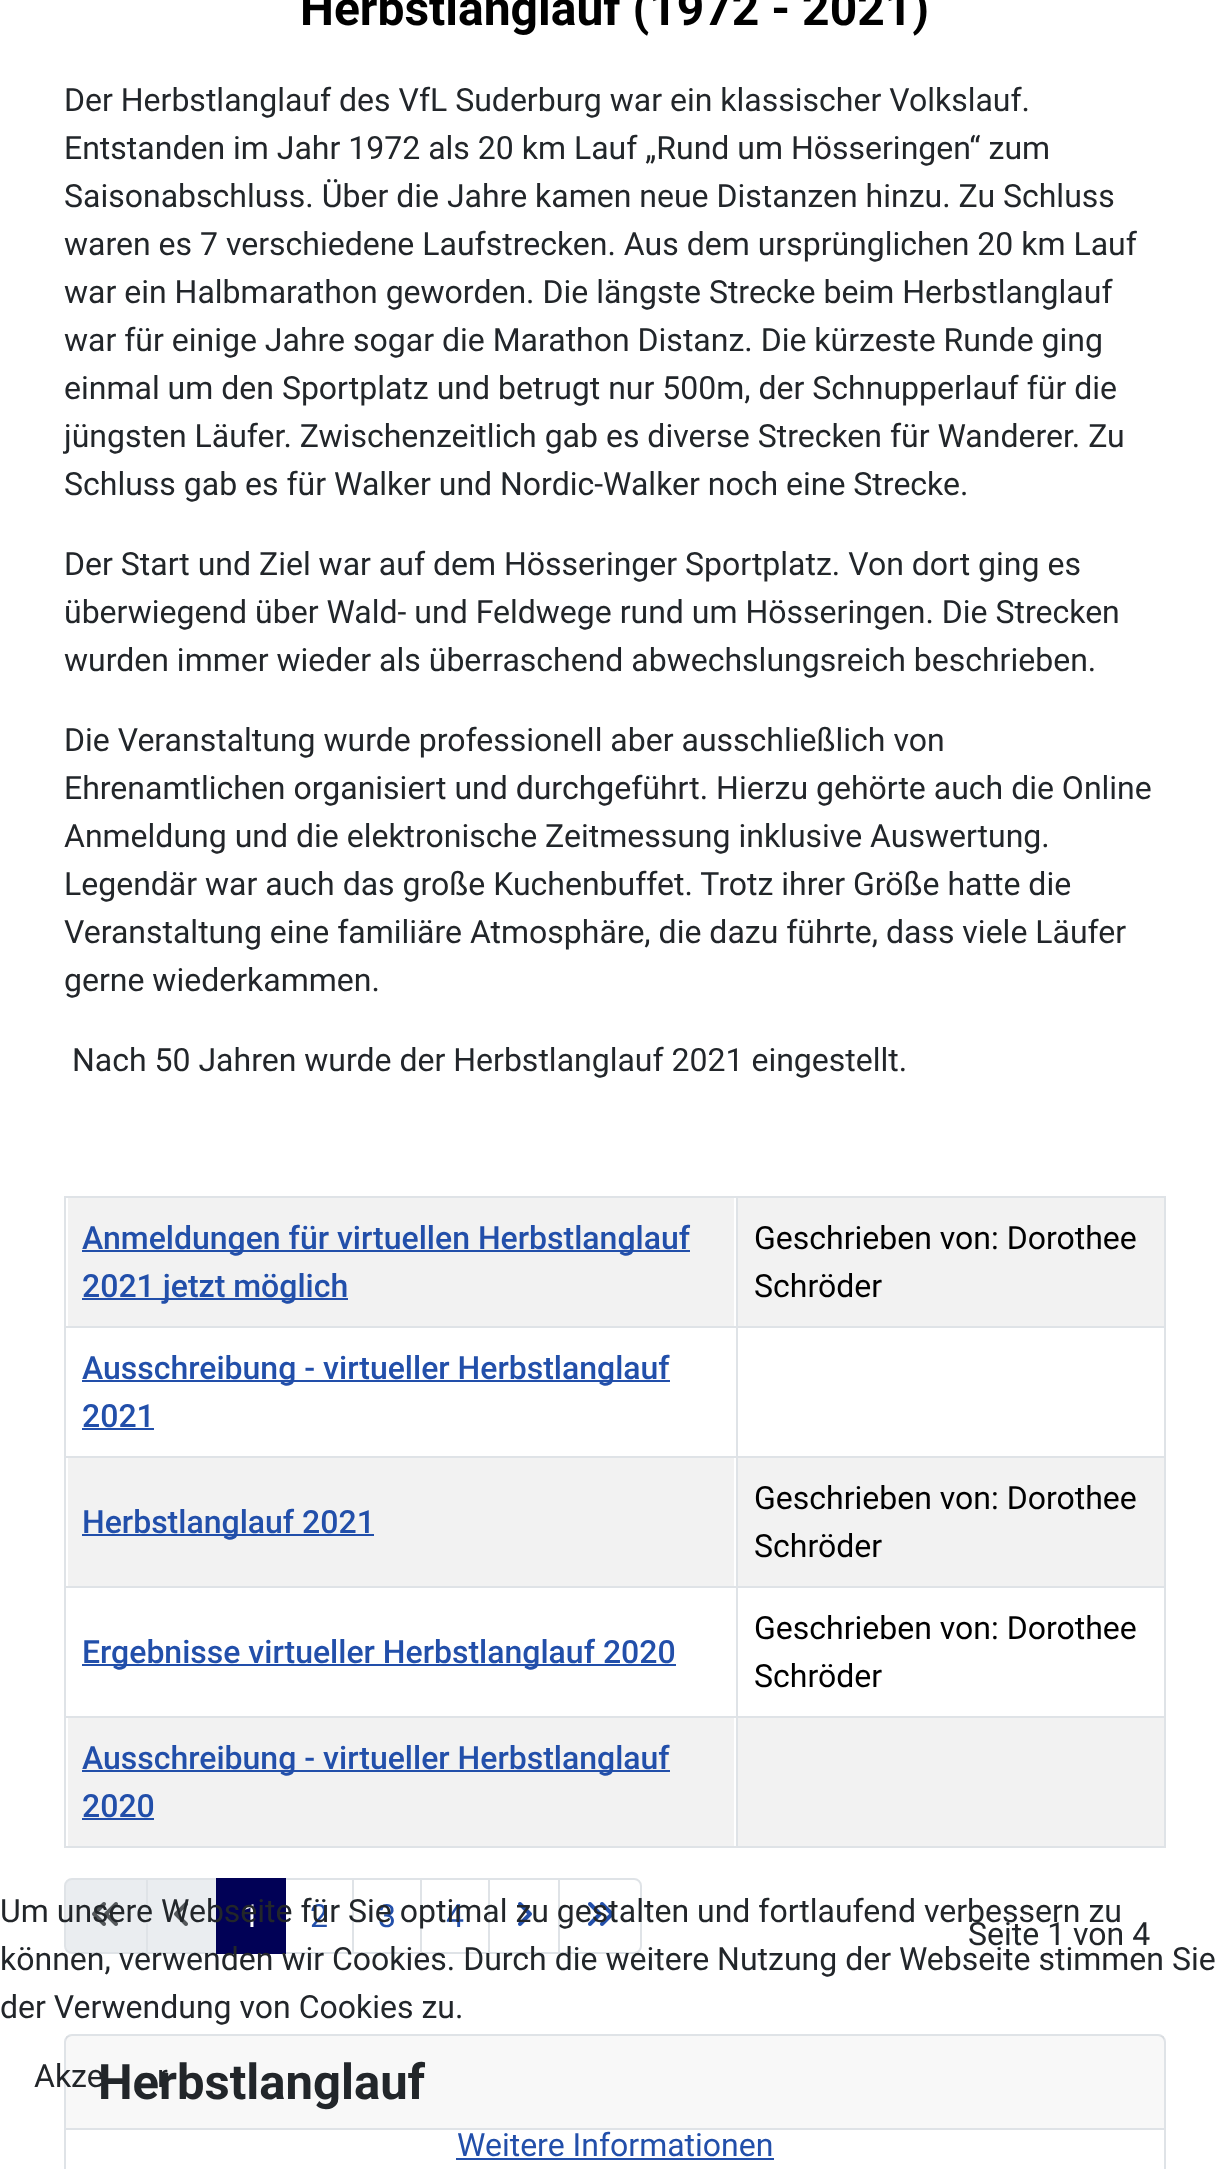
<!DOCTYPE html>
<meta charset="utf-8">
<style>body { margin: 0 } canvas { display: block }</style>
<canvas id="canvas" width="1229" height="2169"></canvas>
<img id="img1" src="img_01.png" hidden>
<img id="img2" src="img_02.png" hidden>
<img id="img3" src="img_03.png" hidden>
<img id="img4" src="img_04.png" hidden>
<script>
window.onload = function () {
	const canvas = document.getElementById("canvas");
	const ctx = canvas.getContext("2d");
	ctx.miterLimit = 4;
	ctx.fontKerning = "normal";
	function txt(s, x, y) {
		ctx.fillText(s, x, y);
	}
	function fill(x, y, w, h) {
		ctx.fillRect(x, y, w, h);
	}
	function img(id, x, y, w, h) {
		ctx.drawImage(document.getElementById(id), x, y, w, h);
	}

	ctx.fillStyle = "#FFFFFF";
	fill(0, 0, 1229, 2169);
	ctx.fillStyle = "#DFE3E7";
	fill(64, 1196, 1102, 2);
	ctx.fillStyle = "#F2F2F2";
	fill(68, 1198, 666, 128);
	ctx.fillStyle = "#224FAA";
	fill(82, 1250, 608, 2);
	fill(82, 1298, 266, 2);
	ctx.fillStyle = "#F2F2F2";
	fill(738, 1198, 426, 128);
	ctx.fillStyle = "#DFE3E7";
	fill(64, 1326, 1102, 2);
	ctx.fillStyle = "#224FAA";
	fill(82, 1380, 588, 2);
	fill(82, 1428, 72, 2);
	ctx.fillStyle = "#DFE3E7";
	fill(64, 1456, 1102, 2);
	ctx.fillStyle = "#F2F2F2";
	fill(68, 1458, 666, 128);
	ctx.fillStyle = "#224FAA";
	fill(82, 1534, 292, 2);
	ctx.fillStyle = "#F2F2F2";
	fill(738, 1458, 426, 128);
	ctx.fillStyle = "#DFE3E7";
	fill(64, 1586, 1102, 2);
	ctx.fillStyle = "#224FAA";
	fill(82, 1664, 594, 2);
	ctx.fillStyle = "#DFE3E7";
	fill(64, 1716, 1102, 2);
	fill(64, 1846, 1102, 2);
	ctx.fillStyle = "#F2F2F2";
	fill(68, 1718, 666, 128);
	ctx.fillStyle = "#DFE3E7";
	fill(64, 1196, 2, 652);
	ctx.fillStyle = "#224FAA";
	fill(82, 1770, 588, 2);
	fill(82, 1818, 72, 2);
	ctx.fillStyle = "#F2F2F2";
	fill(738, 1718, 426, 128);
	ctx.fillStyle = "#DFE3E7";
	fill(1164, 1196, 2, 652);
	fill(736, 1196, 2, 652);
	ctx.fillStyle = "#EAEDF0";
	ctx.beginPath();
	ctx.roundRect(65, 1879, 82, 74, [7, 0, 0, 7]);
	ctx.fill();
	ctx.strokeStyle = "#DFE3E7";
	ctx.lineWidth = 2;
	ctx.stroke();
	img("img1", 92, 1902, 26, 24);
	ctx.beginPath();
	ctx.rect(147, 1879, 70, 74);
	ctx.fill();
	ctx.stroke();
	img("img2", 174, 1902, 14, 24);
	ctx.strokeRect(285, 1879, 68, 74);
	ctx.fillStyle = "#010156";
	fill(216, 1878, 70, 76);
	ctx.strokeRect(353, 1879, 68, 74);
	ctx.strokeRect(421, 1879, 68, 74);
	ctx.strokeRect(489, 1879, 70, 74);
	img("img3", 518, 1902, 14, 24);
	ctx.fillStyle = "#FFFFFF";
	ctx.beginPath();
	ctx.roundRect(559, 1879, 82, 74, [0, 7, 7, 0]);
	ctx.fill();
	ctx.stroke();
	img("img4", 588, 1902, 26, 24);
	ctx.beginPath();
	ctx.roundRect(65, 2035, 1100, 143, 7);
	ctx.stroke();
	ctx.fillStyle = "rgba(34, 38, 42, 0.03)";
	fill(66, 2036, 1098, 92);
	ctx.fillStyle = "#DFE3E7";
	fill(66, 2128, 1098, 2);
	ctx.fillStyle = "#224FAA";
	fill(456, 2158, 318, 2);
	ctx.font = "bold 48px Roboto";
	ctx.fillStyle = "#000000";
	txt("Herbstlanglauf (1972 - 2021)", 300, 25);
	ctx.font = "32px Roboto";
	ctx.fillStyle = "#22262A";
	txt("Der Herbstlanglauf des VfL Suderburg war ein klassischer Volkslauf.", 64, 111);
	txt("Entstanden im Jahr 1972 als 20 km Lauf „Rund um Hösseringen“ zum", 64, 159);
	txt("Saisonabschluss. Über die Jahre kamen neue Distanzen hinzu. Zu Schluss", 64, 207);
	txt("waren es 7 verschiedene Laufstrecken. Aus dem ursprünglichen 20 km Lauf", 64, 255);
	txt("war ein Halbmarathon geworden. Die längste Strecke beim Herbstlanglauf", 64, 303);
	txt("war für einige Jahre sogar die Marathon Distanz. Die kürzeste Runde ging", 64, 351);
	txt("einmal um den Sportplatz und betrugt nur 500m, der Schnupperlauf für die", 64, 399);
	txt("jüngsten Läufer. Zwischenzeitlich gab es diverse Strecken für Wanderer. Zu", 64, 447);
	txt("Schluss gab es für Walker und Nordic-Walker noch eine Strecke.", 64, 495);
	txt("Der Start und Ziel war auf dem Hösseringer Sportplatz. Von dort ging es", 64, 575);
	txt("überwiegend über Wald- und Feldwege rund um Hösseringen. Die Strecken", 64, 623);
	txt("wurden immer wieder als überraschend abwechslungsreich beschrieben.", 64, 671);
	txt("Die Veranstaltung wurde professionell aber ausschließlich von", 64, 751);
	txt("Ehrenamtlichen organisiert und durchgeführt. Hierzu gehörte auch die Online", 64, 799);
	txt("Anmeldung und die elektronische Zeitmessung inklusive Auswertung.", 64, 847);
	txt("Legendär war auch das große Kuchenbuffet. Trotz ihrer Größe hatte die", 64, 895);
	txt("Veranstaltung eine familiäre Atmosphäre, die dazu führte, dass viele Läufer", 64, 943);
	txt("gerne wiederkammen.", 64, 991);
	txt("Nach 50 Jahren wurde der Herbstlanglauf 2021 eingestellt.", 72, 1071);
	ctx.font = "500 32px Roboto";
	ctx.fillStyle = "#224FAA";
	txt("Anmeldungen für virtuellen Herbstlanglauf", 82, 1249);
	txt("2021 jetzt möglich", 82, 1297);
	ctx.font = "32px Roboto";
	ctx.fillStyle = "#000000";
	txt("Geschrieben von: Dorothee", 754, 1249);
	txt("Schröder", 754, 1297);
	ctx.font = "500 32px Roboto";
	ctx.fillStyle = "#224FAA";
	txt("Ausschreibung - virtueller Herbstlanglauf", 82, 1379);
	txt("2021", 82, 1427);
	txt("Herbstlanglauf 2021", 82, 1533);
	ctx.font = "32px Roboto";
	ctx.fillStyle = "#000000";
	txt("Geschrieben von: Dorothee", 754, 1509);
	txt("Schröder", 754, 1557);
	ctx.font = "500 32px Roboto";
	ctx.fillStyle = "#224FAA";
	txt("Ergebnisse virtueller Herbstlanglauf 2020", 82, 1663);
	ctx.font = "32px Roboto";
	ctx.fillStyle = "#000000";
	txt("Geschrieben von: Dorothee", 754, 1639);
	txt("Schröder", 754, 1687);
	ctx.font = "500 32px Roboto";
	ctx.fillStyle = "#224FAA";
	txt("Ausschreibung - virtueller Herbstlanglauf", 82, 1769);
	txt("2020", 82, 1817);
	ctx.font = "32px Roboto";
	ctx.fillStyle = "#FFFFFF";
	txt("1", 242, 1927);
	ctx.fillStyle = "#224FAA";
	txt("2", 310, 1927);
	txt("3", 378, 1927);
	txt("4", 446, 1927);
	ctx.fillStyle = "#22262A";
	txt("Seite 1 von 4", 968, 1945);
	ctx.font = "bold 49px Roboto";
	txt("Herbstlanglauf", 98, 2099);
	ctx.font = "32px Roboto";
	txt("Um unsere Webseite für Sie optimal zu gestalten und fortlaufend verbessern zu", 0, 1922);
	txt("können, verwenden wir Cookies. Durch die weitere Nutzung der Webseite stimmen Sie", 0, 1970);
	txt("der Verwendung von Cookies zu.", 0, 2018);
	txt("Akze", 34, 2087);
	txt("r", 157, 2087);
	ctx.fillStyle = "#224FAA";
	txt("Weitere Informationen", 457, 2156);
};
</script>
